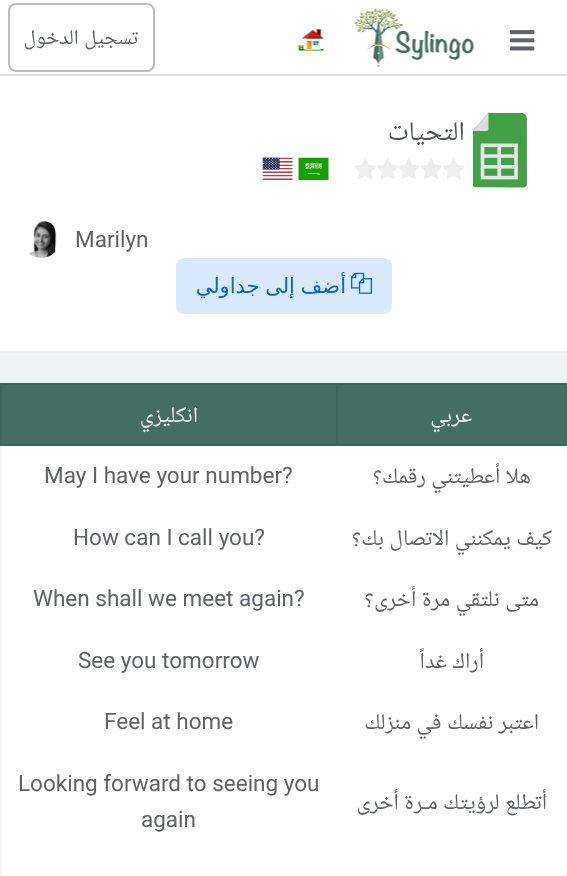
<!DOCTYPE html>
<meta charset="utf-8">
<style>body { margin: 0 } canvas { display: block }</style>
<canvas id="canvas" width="567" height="876"></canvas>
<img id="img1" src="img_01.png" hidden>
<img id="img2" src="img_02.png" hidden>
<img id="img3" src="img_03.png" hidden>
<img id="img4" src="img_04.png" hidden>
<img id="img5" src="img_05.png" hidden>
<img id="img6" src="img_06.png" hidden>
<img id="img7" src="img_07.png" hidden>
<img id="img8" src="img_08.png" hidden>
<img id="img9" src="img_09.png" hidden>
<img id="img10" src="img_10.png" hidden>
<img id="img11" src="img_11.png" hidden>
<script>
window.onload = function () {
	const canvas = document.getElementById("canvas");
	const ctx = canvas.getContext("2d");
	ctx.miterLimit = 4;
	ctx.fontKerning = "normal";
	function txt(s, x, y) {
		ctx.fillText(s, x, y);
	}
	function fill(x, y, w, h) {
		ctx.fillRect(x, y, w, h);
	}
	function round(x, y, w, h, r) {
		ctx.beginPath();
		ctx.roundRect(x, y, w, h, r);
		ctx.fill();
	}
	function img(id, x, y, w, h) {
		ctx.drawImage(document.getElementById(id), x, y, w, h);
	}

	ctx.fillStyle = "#EFF1F5";
	fill(0, 0, 567, 876);
	ctx.fillStyle = "#FFFFFF";
	fill(0, 0, 567, 74);
	ctx.fillStyle = "#E0E0E0";
	fill(0, 74, 567, 2);
	img("img1", 510, 30, 25, 21);
	img("img2", 354, 8, 120, 59);
	img("img3", 298, 29, 26, 22);
	ctx.beginPath();
	ctx.roundRect(9, 4, 145, 67, 7);
	ctx.strokeStyle = "#BDBDBD";
	ctx.lineWidth = 2;
	ctx.stroke();
	ctx.fillStyle = "#FFFFFF";
	fill(0, 76, 567, 275);
	ctx.fillStyle = "#EEEEEE";
	fill(0, 351, 567, 2);
	img("img4", 473, 113, 54, 75);
	img("img5", 442, 158, 23, 22);
	img("img6", 420, 158, 22, 22);
	img("img5", 397, 158, 23, 22);
	img("img7", 376, 158, 22, 22);
	img("img6", 354, 158, 22, 22);
	img("img8", 298, 157, 31, 23);
	img("img9", 262, 157, 31, 23);
	img("img10", 28, 221, 29, 37);
	ctx.fillStyle = "#D9EAFF";
	round(176, 258, 216, 56, 8);
	img("img11", 351, 272, 21, 22);
	ctx.fillStyle = "#446E61";
	fill(338, 385, 228, 59);
	ctx.fillStyle = "#3A6759";
	fill(0, 383, 338, 2);
	fill(336, 383, 2, 63);
	fill(336, 383, 231, 2);
	fill(566, 383, 1, 63);
	ctx.fillStyle = "#F5F5F5";
	fill(0, 444, 2, 432);
	ctx.fillStyle = "#3A6759";
	fill(0, 444, 338, 2);
	fill(336, 444, 231, 2);
	ctx.fillStyle = "#446E61";
	fill(2, 385, 334, 59);
	ctx.fillStyle = "#3A6759";
	fill(0, 383, 2, 63);
	ctx.fillStyle = "#FFFFFF";
	fill(2, 851, 565, 25);
	fill(2, 446, 565, 61);
	fill(2, 507, 565, 62);
	fill(2, 569, 565, 61);
	fill(2, 630, 565, 62);
	fill(2, 692, 565, 61);
	fill(2, 753, 565, 98);
	ctx.wordSpacing = "1px";
	ctx.direction = "rtl";
	ctx.font = "21px Noto Naskh Arabic";
	ctx.fillStyle = "#5F6368";
	txt("تسجيل الدخول", 138, 44);
	ctx.wordSpacing = "0px";
	ctx.font = "27px Noto Naskh Arabic";
	ctx.fillStyle = "#4E525C";
	txt("التحيات", 465, 140);
	ctx.direction = "ltr";
	ctx.font = "22.5px Roboto";
	ctx.fillStyle = "#5F6368";
	txt("Marilyn", 75, 247);
	ctx.wordSpacing = "-1px";
	ctx.direction = "rtl";
	ctx.font = "21px DejaVu Sans";
	ctx.fillStyle = "#0065DF";
	txt("أضف إلى جداولي", 346, 293);
	ctx.wordSpacing = "0px";
	ctx.font = "22.5px Noto Naskh Arabic";
	ctx.fillStyle = "#EEEEEE";
	txt("عربي", 472, 422);
	txt("انكليزي", 198, 422);
	ctx.wordSpacing = "0.5px";
	ctx.fillStyle = "#5F6368";
	txt("هلا أعطيتني رقمك؟", 531, 483);
	ctx.wordSpacing = "0px";
	ctx.direction = "ltr";
	ctx.font = "22.5px Roboto";
	txt("May I have your number?", 44, 483);
	ctx.wordSpacing = "0.5px";
	ctx.direction = "rtl";
	ctx.font = "22.5px Noto Naskh Arabic";
	txt("كيف يمكنني الاتصال بك؟", 552, 545);
	ctx.wordSpacing = "0px";
	ctx.direction = "ltr";
	ctx.font = "22.5px Roboto";
	txt("How can I call you?", 73, 545);
	ctx.wordSpacing = "0.5px";
	ctx.direction = "rtl";
	ctx.font = "22.5px Noto Naskh Arabic";
	txt("متى نلتقي مرة أخرى؟", 539, 606);
	ctx.wordSpacing = "0px";
	ctx.direction = "ltr";
	ctx.font = "22.5px Roboto";
	txt("When shall we meet again?", 33, 606);
	ctx.wordSpacing = "0.5px";
	ctx.direction = "rtl";
	ctx.font = "22.5px Noto Naskh Arabic";
	txt("أراك غداً", 484, 668);
	ctx.wordSpacing = "0px";
	ctx.direction = "ltr";
	ctx.font = "22.5px Roboto";
	txt("See you tomorrow", 78, 668);
	ctx.wordSpacing = "0.5px";
	ctx.direction = "rtl";
	ctx.font = "22.5px Noto Naskh Arabic";
	txt("اعتبر نفسك في منزلك", 539, 729);
	ctx.wordSpacing = "0px";
	ctx.direction = "ltr";
	ctx.font = "22.5px Roboto";
	txt("Feel at home", 104, 729);
	ctx.wordSpacing = "0.5px";
	ctx.direction = "rtl";
	ctx.font = "22.5px Noto Naskh Arabic";
	txt("أتطلع لرؤيتك مـرة أخرى", 547, 809);
	ctx.wordSpacing = "0px";
	ctx.direction = "ltr";
	ctx.font = "22.5px Roboto";
	txt("Looking forward to seeing you", 18, 791);
	txt("again", 141, 827);
};
</script>
